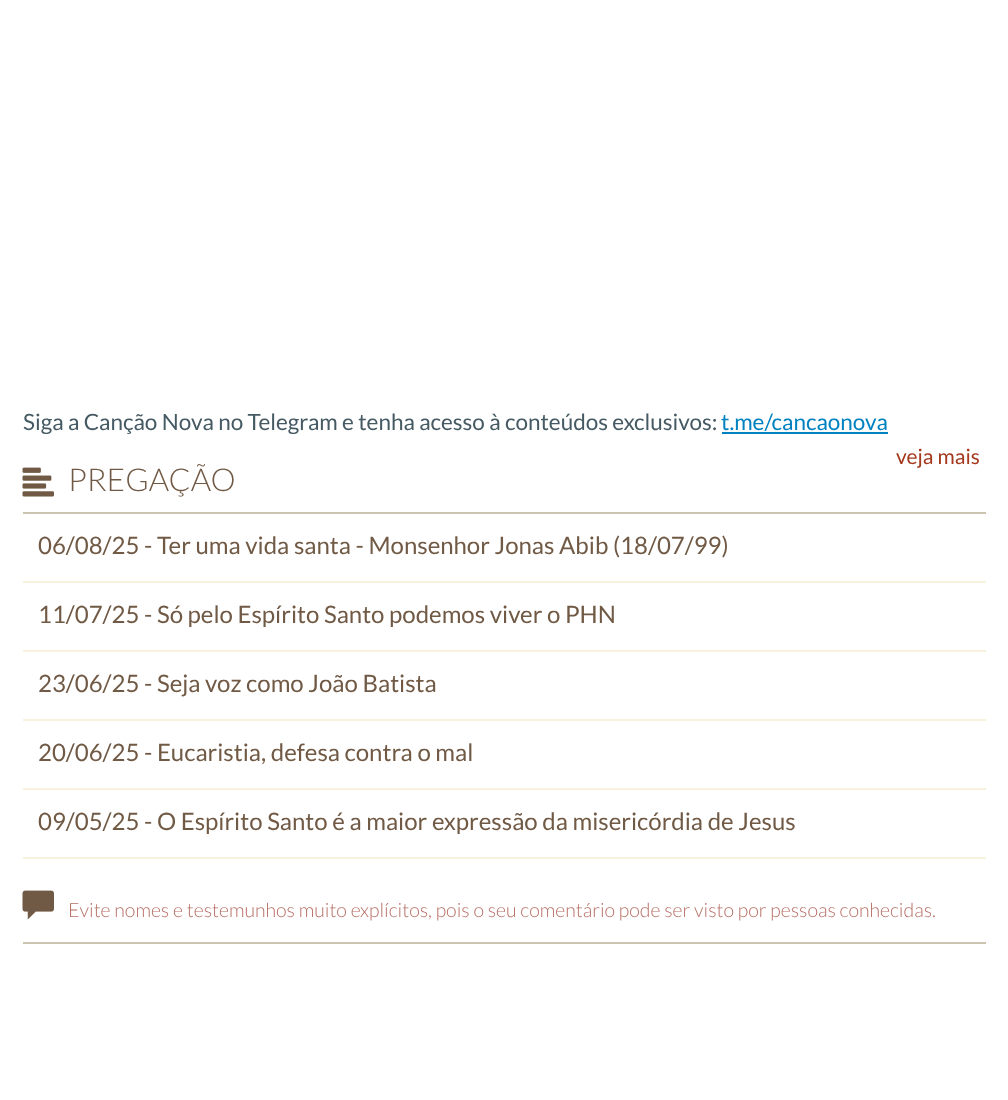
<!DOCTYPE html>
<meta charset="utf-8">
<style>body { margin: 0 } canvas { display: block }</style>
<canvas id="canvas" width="1008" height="1100"></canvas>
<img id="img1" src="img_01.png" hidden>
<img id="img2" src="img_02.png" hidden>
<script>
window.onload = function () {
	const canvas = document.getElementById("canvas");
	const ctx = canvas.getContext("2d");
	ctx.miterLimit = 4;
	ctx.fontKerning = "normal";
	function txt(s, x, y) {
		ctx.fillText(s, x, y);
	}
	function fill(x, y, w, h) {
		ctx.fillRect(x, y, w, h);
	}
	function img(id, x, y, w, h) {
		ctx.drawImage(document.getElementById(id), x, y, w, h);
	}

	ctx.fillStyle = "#FFFFFF";
	fill(0, 0, 1008, 1100);
	ctx.fillStyle = "#0082C0";
	fill(722, 432, 166, 2);
	ctx.fillStyle = "#F8F2DD";
	fill(23, 581, 963, 2);
	fill(23, 650, 963, 2);
	fill(23, 719, 963, 2);
	fill(23, 788, 963, 2);
	fill(23, 857, 963, 2);
	ctx.fillStyle = "#CCC4AF";
	fill(23, 512, 963, 2);
	img("img1", 22, 467, 32, 30);
	fill(23, 942, 963, 2);
	img("img2", 22, 890, 32, 30);
	ctx.font = "22.5px Lato";
	ctx.fillStyle = "#455A63";
	txt("Siga a Canção Nova no Telegram e tenha acesso à conteúdos exclusivos:", 23, 430);
	ctx.fillStyle = "#0082C0";
	txt("t.me/cancaonova", 721, 430);
	ctx.font = "21px Lato";
	ctx.fillStyle = "#A4391E";
	txt("veja mais", 896, 464);
	ctx.font = "24px Lato";
	ctx.fillStyle = "#715A45";
	txt("06/08/25 - Ter uma vida santa - Monsenhor Jonas Abib (18/07/99)", 38, 554);
	txt("11/07/25 - Só pelo Espírito Santo podemos viver o PHN", 38, 623);
	txt("23/06/25 - Seja voz como João Batista", 38, 692);
	txt("20/06/25 - Eucaristia, defesa contra o mal", 38, 761);
	txt("09/05/25 - O Espírito Santo é a maior expressão da misericórdia de Jesus", 38, 830);
	ctx.font = "300 31.5px Lato";
	txt("PREGAÇÃO", 68, 491);
	ctx.font = "300 19.5px Lato";
	ctx.fillStyle = "#B66E64";
	txt("Evite nomes e testemunhos muito explícitos, pois o seu comentário pode ser visto por pessoas conhecidas.", 68, 917);
};
</script>
